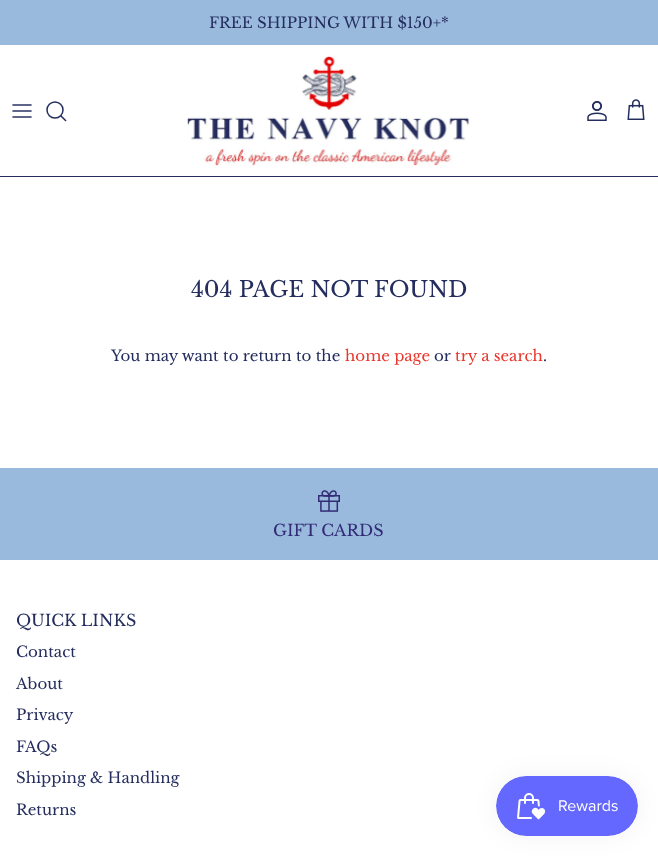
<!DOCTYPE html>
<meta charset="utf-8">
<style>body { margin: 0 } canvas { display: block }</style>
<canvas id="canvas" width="658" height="856"></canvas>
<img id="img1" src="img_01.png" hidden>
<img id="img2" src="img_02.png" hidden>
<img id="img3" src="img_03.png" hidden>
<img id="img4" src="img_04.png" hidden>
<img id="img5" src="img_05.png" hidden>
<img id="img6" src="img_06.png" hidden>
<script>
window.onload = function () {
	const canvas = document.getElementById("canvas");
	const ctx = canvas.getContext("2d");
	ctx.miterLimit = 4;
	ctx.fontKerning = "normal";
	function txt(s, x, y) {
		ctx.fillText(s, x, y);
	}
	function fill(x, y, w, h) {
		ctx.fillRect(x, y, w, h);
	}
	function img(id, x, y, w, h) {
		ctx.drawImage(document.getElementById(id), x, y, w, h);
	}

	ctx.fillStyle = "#FFFFFF";
	fill(0, 0, 658, 856);
	ctx.fillStyle = "#99BADD";
	fill(0, 0, 658, 45);
	ctx.fillStyle = "#242D5E";
	fill(0, 176, 658, 1);
	img("img1", 12, 104, 20, 14);
	ctx.beginPath();
	ctx.arc(55, 110, 8, 0, Math.PI * 2);
	ctx.strokeStyle = "#242D5E";
	ctx.lineWidth = 1.5;
	ctx.stroke();
	ctx.beginPath();
	ctx.moveTo(61, 116);
	ctx.lineTo(65.5, 120.5);
	ctx.lineCap = "square";
	ctx.stroke();
	img("img2", 187, 55, 283, 111);
	img("img3", 587, 101, 20, 20);
	img("img4", 627, 99, 18, 21);
	ctx.fillStyle = "#99BADD";
	fill(0, 468, 658, 92);
	img("img5", 318, 490, 22, 22);
	ctx.fillStyle = "rgba(0, 0, 0, 0.05)";
	ctx.filter = "blur(12.5px)";
	ctx.beginPath();
	ctx.roundRect(496, 776, 142, 60, 30);
	ctx.fill();
	ctx.filter = "none";
	img("img6", 496, 776, 142, 60);
	ctx.font = "15px Libre Baskerville";
	ctx.fillStyle = "#242D5E";
	txt("FREE SHIPPING WITH $150+*", 209, 28);
	ctx.font = "22px Libre Baskerville";
	txt("404 PAGE NOT FOUND", 191, 297);
	ctx.font = "15px Libre Baskerville";
	txt("You may want to return to the", 111, 361);
	ctx.fillStyle = "#E8372D";
	txt("home page", 345, 361);
	ctx.fillStyle = "#242D5E";
	txt("or", 434, 361);
	ctx.fillStyle = "#E8372D";
	txt("try a search", 455, 361);
	ctx.fillStyle = "#242D5E";
	txt(".", 543, 361);
	ctx.font = "16px Libre Baskerville";
	ctx.fillStyle = "#322B76";
	txt("GIFT CARDS", 273, 536);
	ctx.fillStyle = "#242D5E";
	txt("QUICK LINKS", 16, 626);
	ctx.font = "15px Libre Baskerville";
	txt("Contact", 16, 657);
	txt("About", 16, 689);
	txt("Privacy", 16, 720);
	txt("FAQs", 16, 752);
	txt("Shipping & Handling", 16, 783);
	txt("Returns", 16, 815);
};
</script>
